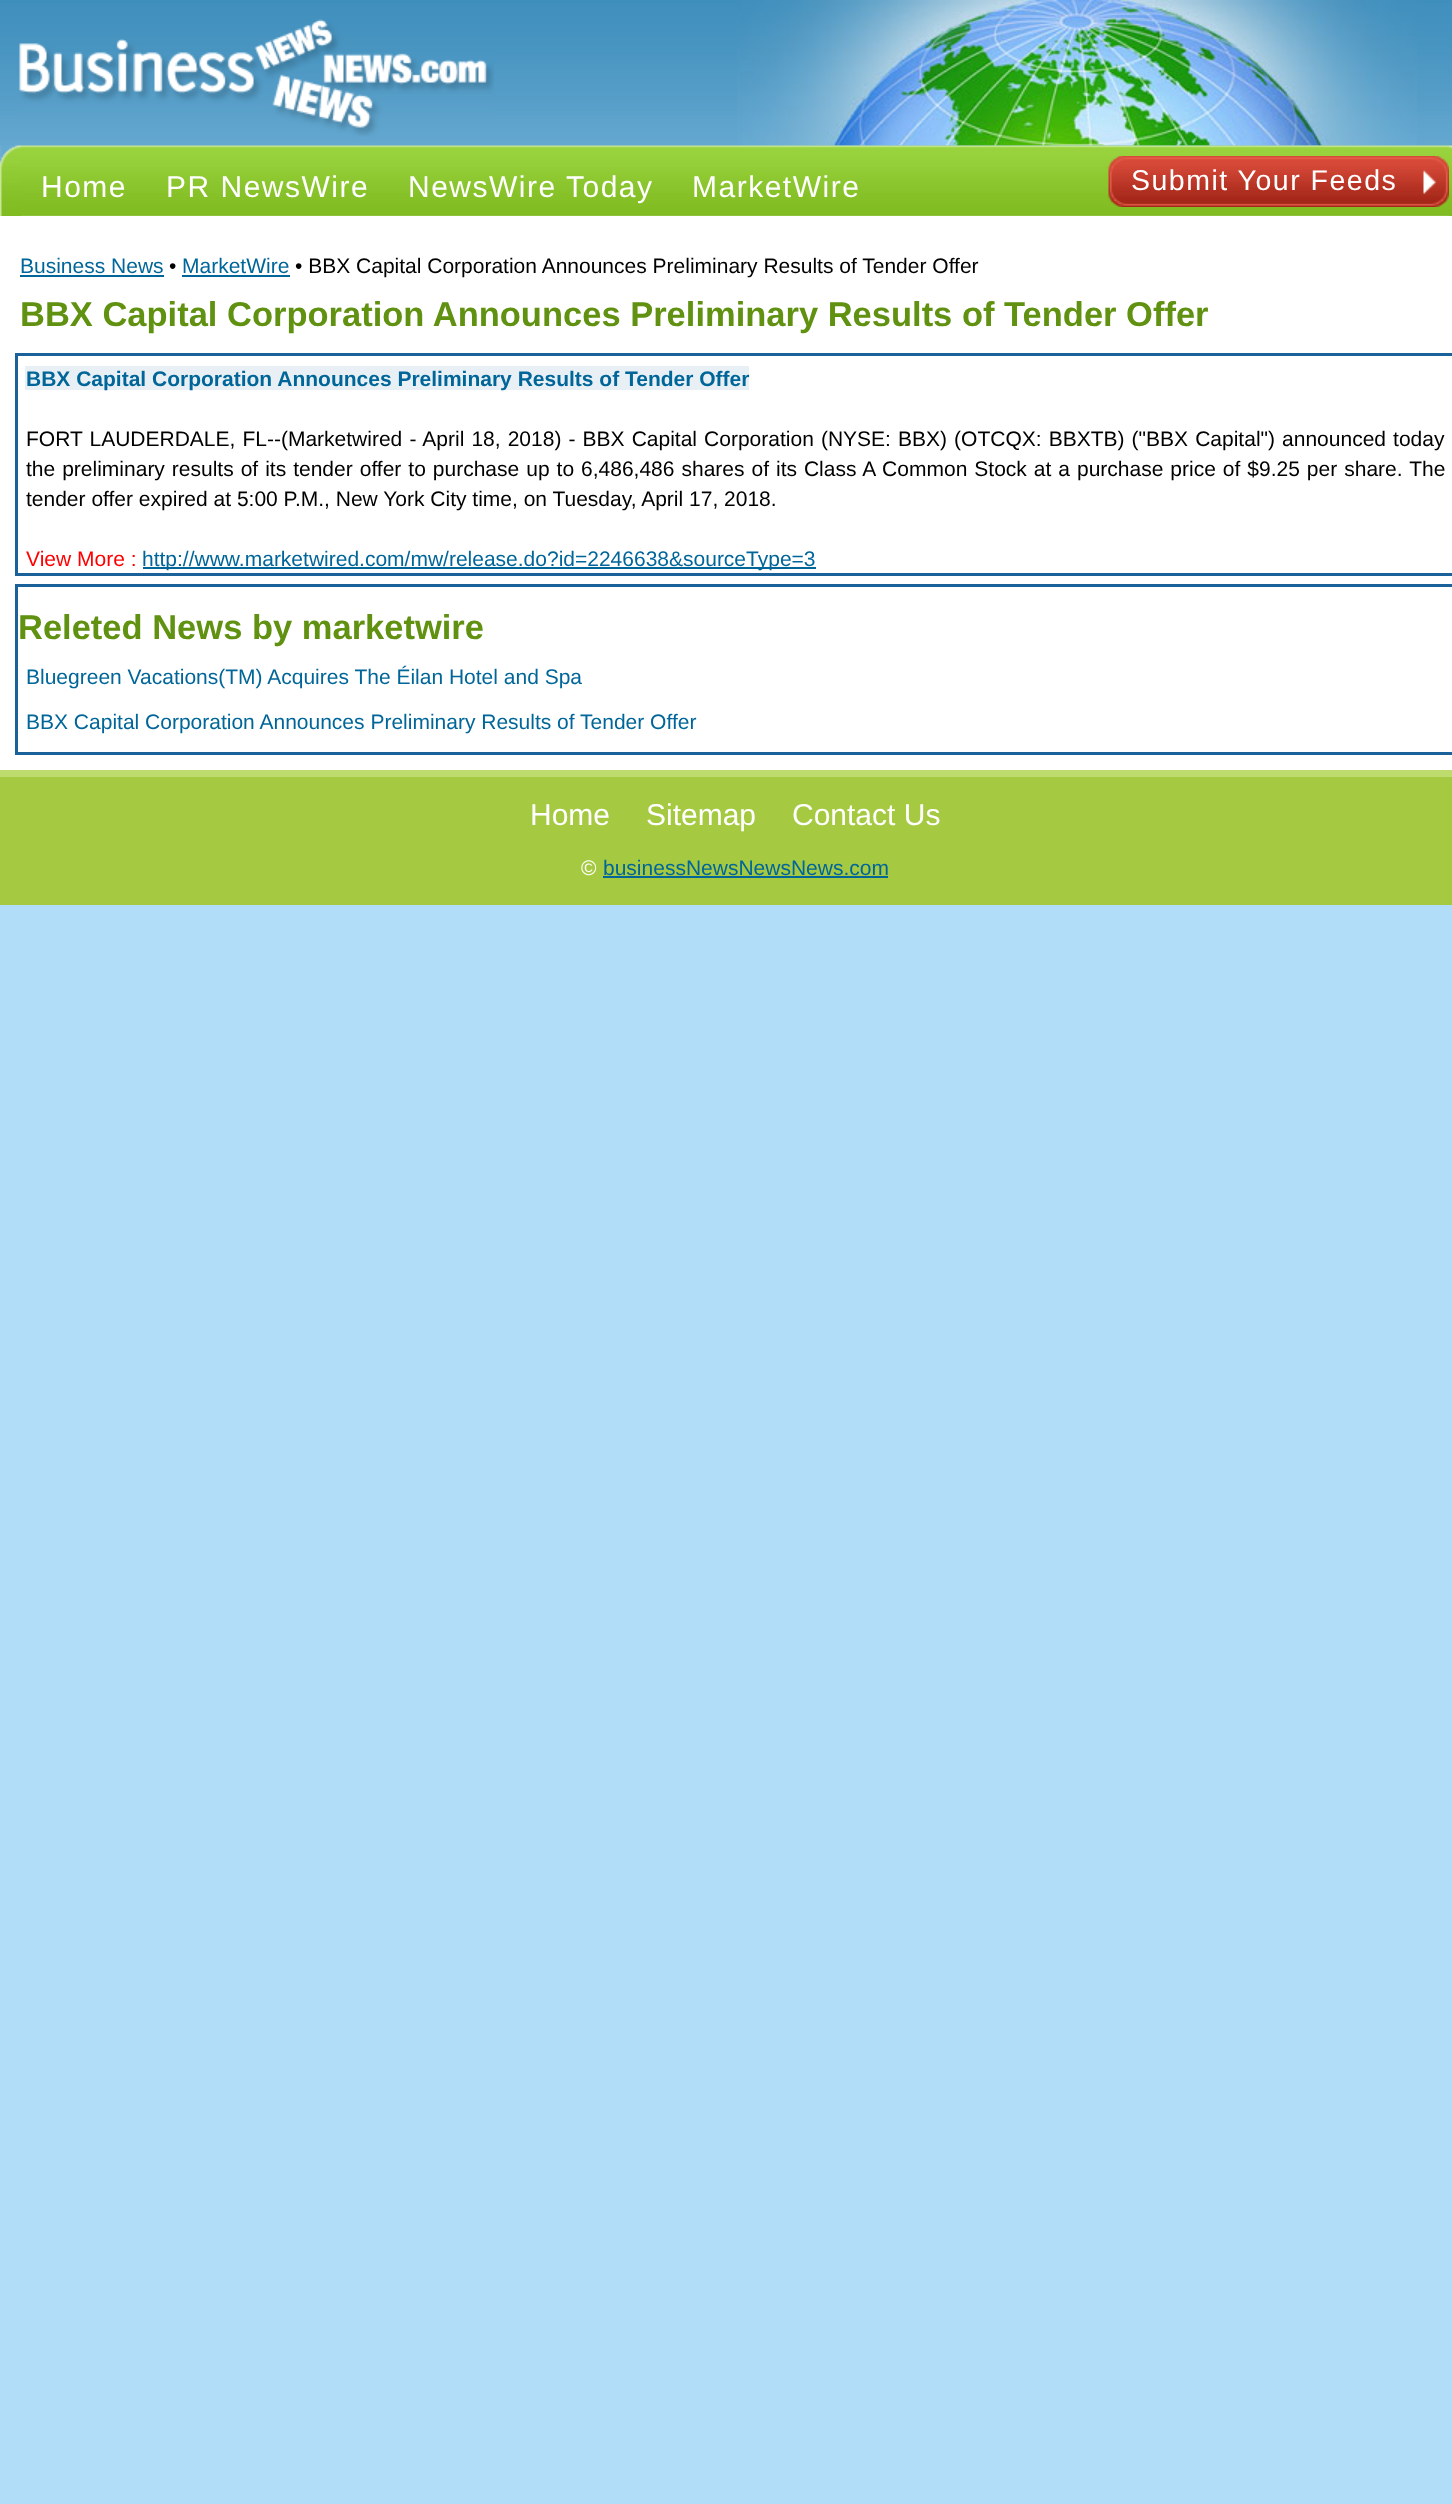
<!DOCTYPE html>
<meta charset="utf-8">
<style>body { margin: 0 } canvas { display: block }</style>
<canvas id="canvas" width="1452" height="2504"></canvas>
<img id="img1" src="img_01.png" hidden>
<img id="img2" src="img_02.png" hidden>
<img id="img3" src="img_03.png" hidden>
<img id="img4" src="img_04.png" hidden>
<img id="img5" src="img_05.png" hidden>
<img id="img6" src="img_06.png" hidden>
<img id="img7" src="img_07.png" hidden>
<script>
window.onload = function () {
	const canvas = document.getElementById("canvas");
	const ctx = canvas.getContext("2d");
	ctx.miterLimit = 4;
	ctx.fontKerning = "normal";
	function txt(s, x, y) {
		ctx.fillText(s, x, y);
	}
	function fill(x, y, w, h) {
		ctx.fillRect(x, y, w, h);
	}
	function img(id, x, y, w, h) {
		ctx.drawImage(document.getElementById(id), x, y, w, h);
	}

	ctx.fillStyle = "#B1DDF8";
	fill(0, 0, 1452, 2504);
	img("img1", 0, 0, 1452, 146);
	img("img2", 19, 19, 475, 118);
	img("img3", 737, 0, 680, 146);
	img("img4", 0, 145, 21, 71);
	img("img5", 21, 145, 1428, 71);
	img("img6", 1108, 156, 341, 51);
	img("img7", 1449, 145, 3, 71);
	ctx.fillStyle = "#FFFFFF";
	fill(0, 216, 1452, 554);
	ctx.fillStyle = "#006699";
	fill(20, 275, 144, 2);
	fill(182, 275, 108, 2);
	ctx.strokeStyle = "#1B619A";
	ctx.lineWidth = 3;
	ctx.strokeRect(16.5, 354.5, 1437, 220);
	ctx.fillStyle = "#E9F0F5";
	fill(25, 366, 724, 24);
	ctx.fillStyle = "#006699";
	fill(143, 567, 673, 2);
	ctx.strokeRect(16.5, 585.5, 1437, 168);
	ctx.fillStyle = "#BEDC6E";
	fill(0, 770, 1452, 7);
	ctx.fillStyle = "#A5CA42";
	fill(0, 777, 1452, 128);
	ctx.fillStyle = "#006699";
	fill(603, 876, 285, 2);
	ctx.letterSpacing = "1.5px";
	ctx.font = "30px Liberation Sans";
	ctx.fillStyle = "#FFFFFF";
	txt("Home", 41, 197);
	txt("PR NewsWire", 166, 197);
	txt("NewsWire Today", 408, 197);
	txt("MarketWire", 692, 197);
	ctx.font = "28.5px Liberation Sans";
	txt("Submit Your Feeds", 1131, 190);
	ctx.letterSpacing = "0px";
	ctx.font = "21px Liberation Sans";
	ctx.fillStyle = "#006699";
	txt("Business News", 20, 273);
	ctx.fillStyle = "#000000";
	txt("•", 169, 273);
	ctx.fillStyle = "#006699";
	txt("MarketWire", 182, 273);
	ctx.fillStyle = "#000000";
	txt("• BBX Capital Corporation Announces Preliminary Results of Tender Offer", 295, 273);
	ctx.font = "bold 34.5px Liberation Sans";
	ctx.fillStyle = "#609110";
	txt("BBX Capital Corporation Announces Preliminary Results of Tender Offer", 20, 326);
	ctx.font = "bold 21px Liberation Sans";
	ctx.fillStyle = "#006699";
	txt("BBX Capital Corporation Announces Preliminary Results of Tender Offer", 26, 386);
	ctx.wordSpacing = "1.25px";
	ctx.font = "21px Liberation Sans";
	ctx.fillStyle = "#000000";
	txt("FORT LAUDERDALE, FL--(Marketwired - April 18, 2018) - BBX Capital Corporation (NYSE: BBX) (OTCQX: BBXTB) (\"BBX Capital\") announced today", 26, 446);
	ctx.wordSpacing = "1.15px";
	txt("the preliminary results of its tender offer to purchase up to 6,486,486 shares of its Class A Common Stock at a purchase price of $9.25 per share. The", 26, 476);
	ctx.wordSpacing = "0px";
	txt("tender offer expired at 5:00 P.M., New York City time, on Tuesday, April 17, 2018.", 26, 506);
	ctx.fillStyle = "#FF0000";
	txt("View More :", 26, 566);
	ctx.fillStyle = "#006699";
	txt("http://www.marketwired.com/mw/release.do?id=2246638&sourceType=3", 142, 566);
	ctx.font = "bold 34.5px Liberation Sans";
	ctx.fillStyle = "#609110";
	txt("Releted News by marketwire", 18, 639);
	ctx.font = "21px Liberation Sans";
	ctx.fillStyle = "#006699";
	txt("Bluegreen Vacations(TM) Acquires The Éilan Hotel and Spa", 26, 684);
	txt("BBX Capital Corporation Announces Preliminary Results of Tender Offer", 26, 729);
	ctx.font = "30px Liberation Sans";
	ctx.fillStyle = "#FFFFFF";
	txt("Home", 530, 825);
	txt("Sitemap", 646, 825);
	txt("Contact Us", 792, 825);
	ctx.font = "21px Liberation Sans";
	txt("©", 581, 875);
	ctx.fillStyle = "#006699";
	txt("businessNewsNewsNews.com", 603, 875);
};
</script>
